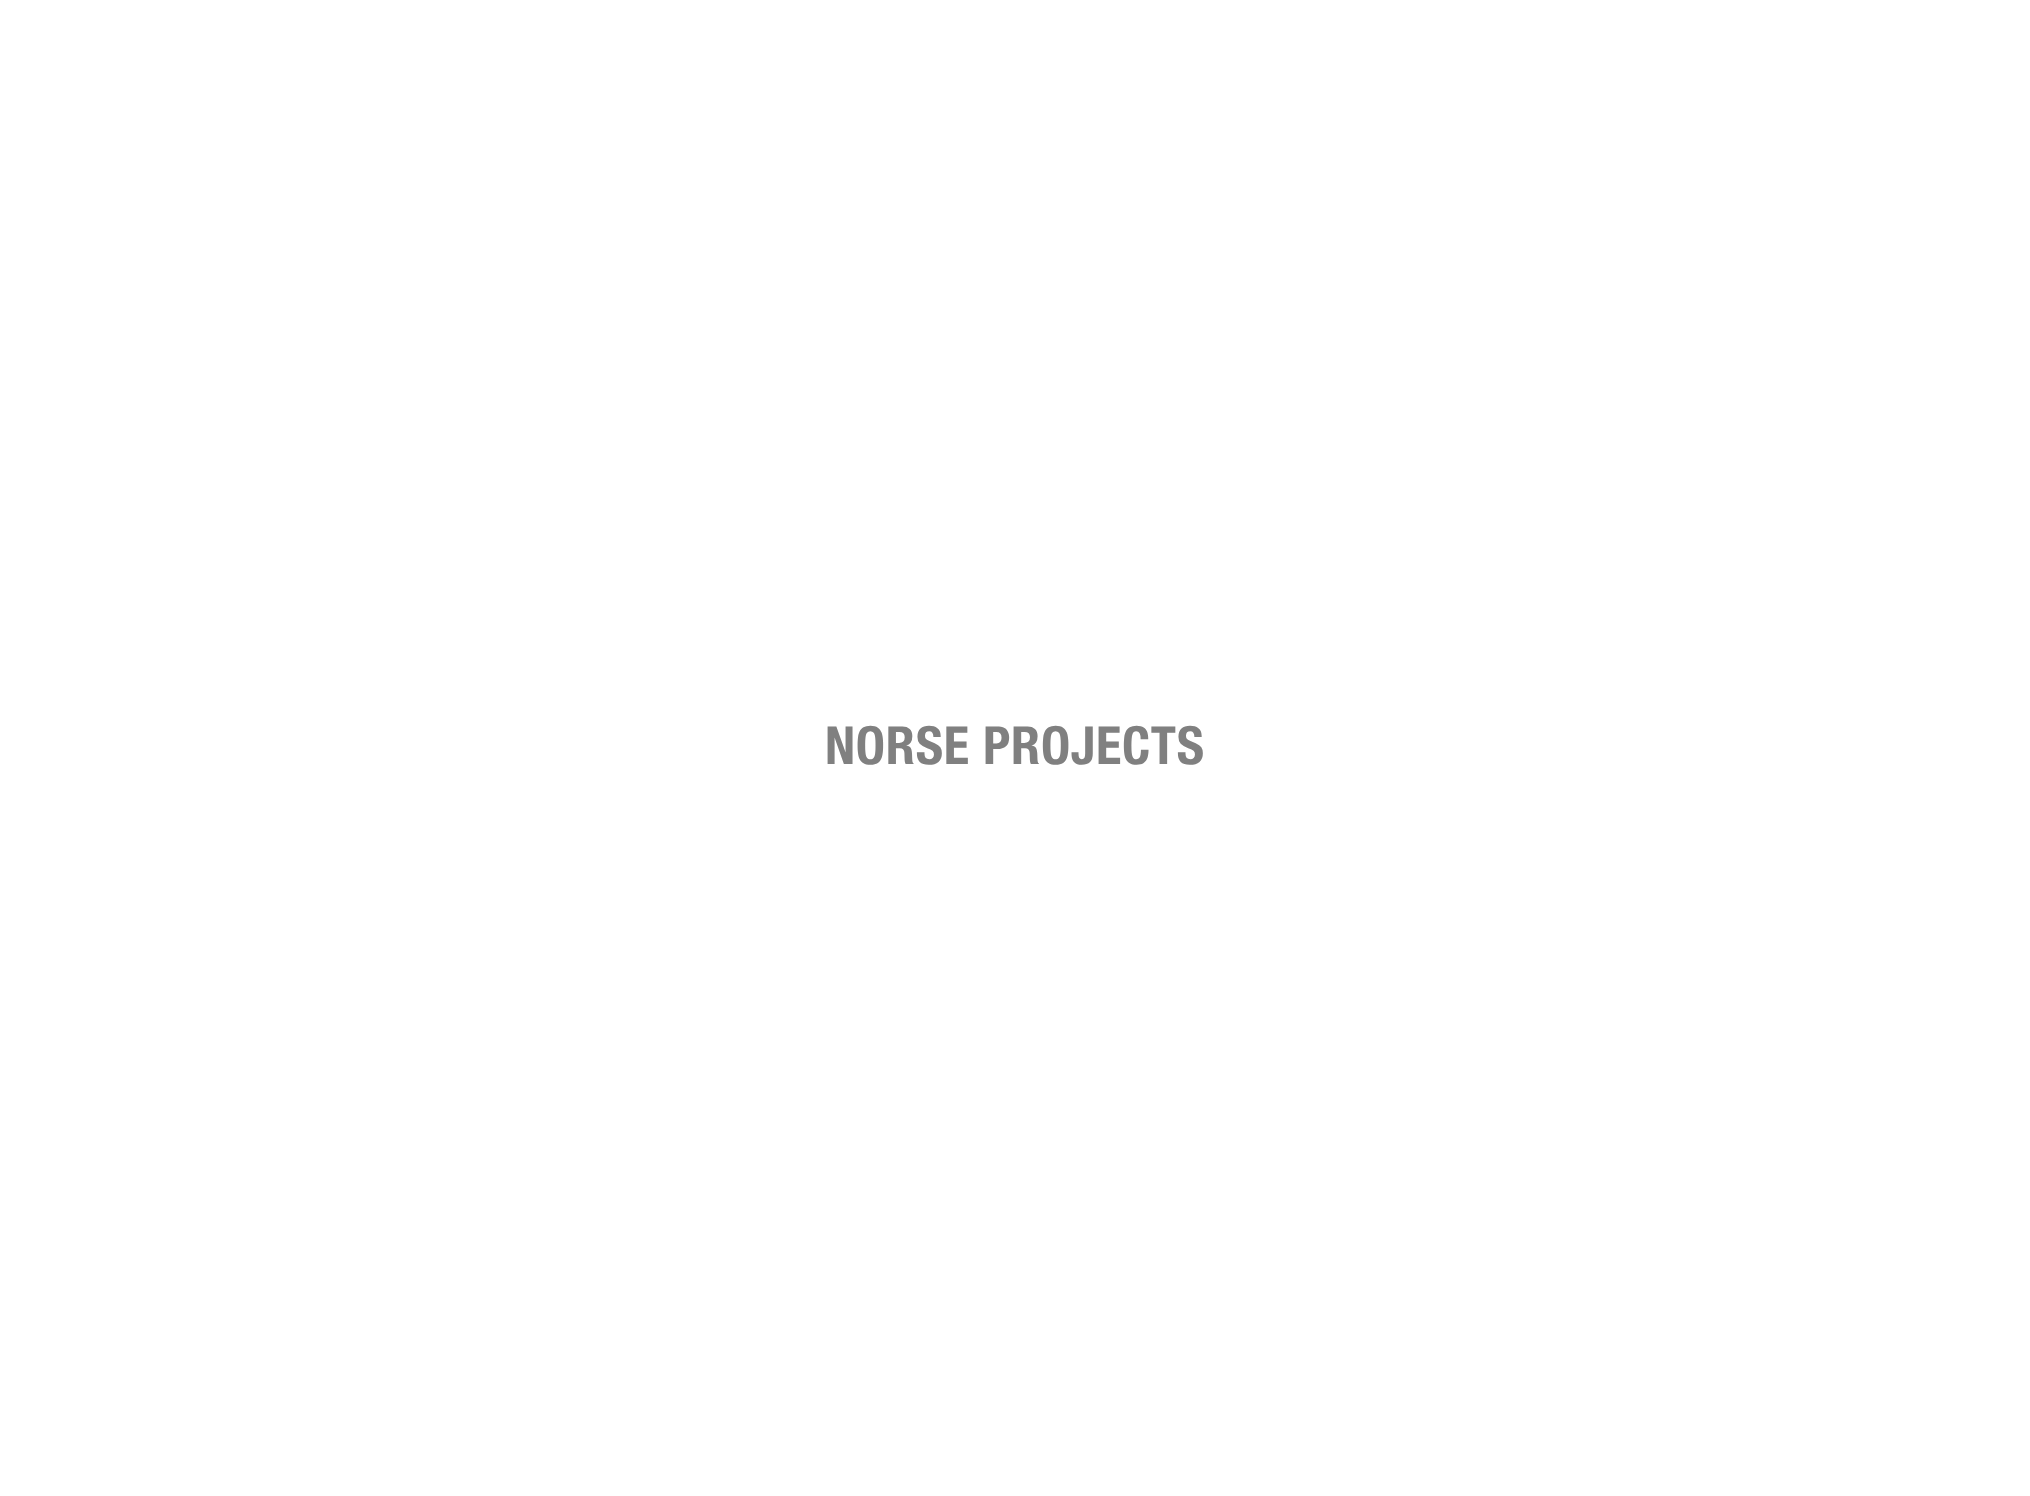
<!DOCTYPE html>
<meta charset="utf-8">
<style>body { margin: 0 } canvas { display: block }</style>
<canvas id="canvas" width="2030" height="1496"></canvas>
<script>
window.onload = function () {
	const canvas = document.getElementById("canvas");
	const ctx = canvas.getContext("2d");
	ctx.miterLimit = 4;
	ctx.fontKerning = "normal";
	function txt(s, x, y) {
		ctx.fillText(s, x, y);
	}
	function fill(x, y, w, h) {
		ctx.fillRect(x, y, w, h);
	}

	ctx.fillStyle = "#FFFFFF";
	fill(0, 0, 2030, 1496);
	ctx.letterSpacing = "0.75px";
	ctx.font = "bold 52.5px Helvetica Neue";
	ctx.fillStyle = "#808080";
	txt("NORSE PROJECTS", 825, 764);
};
</script>
